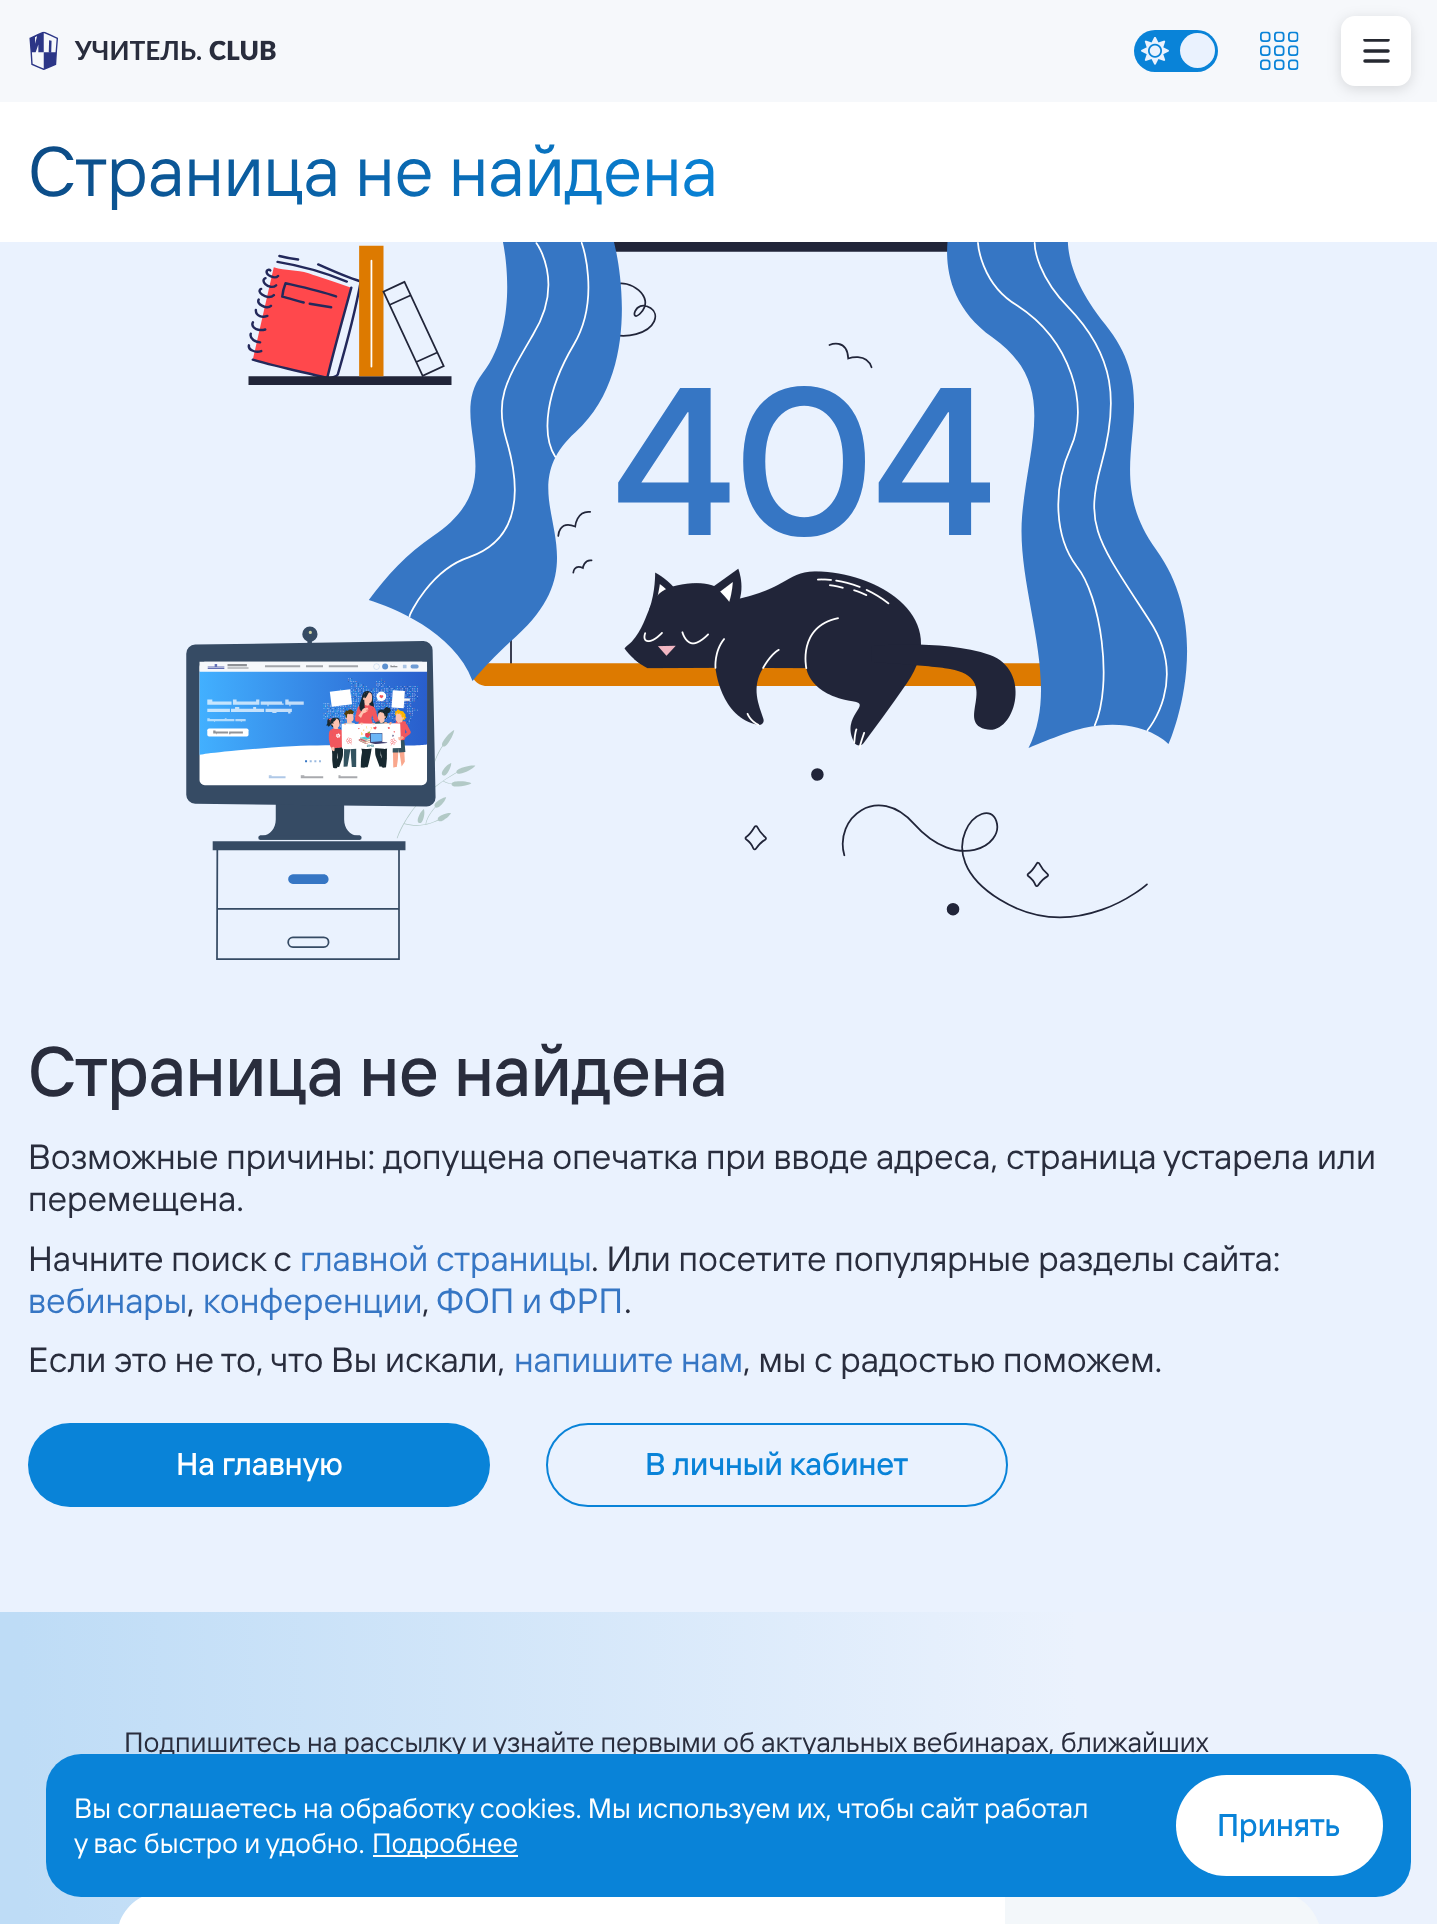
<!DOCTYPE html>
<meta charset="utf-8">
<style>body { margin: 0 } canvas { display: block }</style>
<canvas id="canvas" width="1437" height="1924"></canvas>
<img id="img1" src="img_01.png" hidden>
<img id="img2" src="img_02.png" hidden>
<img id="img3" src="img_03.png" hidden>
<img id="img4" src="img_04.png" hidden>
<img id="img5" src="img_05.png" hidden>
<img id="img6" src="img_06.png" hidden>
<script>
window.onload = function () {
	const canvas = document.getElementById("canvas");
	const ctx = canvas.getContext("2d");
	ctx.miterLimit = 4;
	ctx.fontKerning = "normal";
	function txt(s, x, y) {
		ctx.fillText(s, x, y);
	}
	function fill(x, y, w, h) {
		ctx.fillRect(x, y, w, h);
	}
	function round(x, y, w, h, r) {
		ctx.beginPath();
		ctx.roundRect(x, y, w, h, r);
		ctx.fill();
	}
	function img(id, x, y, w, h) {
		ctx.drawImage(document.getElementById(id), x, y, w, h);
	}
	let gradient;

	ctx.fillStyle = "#FFFFFF";
	fill(0, 0, 1437, 1924);
	ctx.fillStyle = "#F6F8FB";
	fill(0, 0, 1437, 102);
	img("img1", 29, 31, 29, 39);
	img("img2", 74, 40, 202, 21);
	ctx.fillStyle = "#0983D8";
	round(1134, 30, 84, 42, 21);
	img("img3", 1141, 37, 28, 28);
	ctx.fillStyle = "#EAF2FE";
	ctx.beginPath();
	ctx.arc(1197.5, 50.5, 17.5, 0, Math.PI * 2);
	ctx.fill();
	img("img4", 1260, 31, 39, 39);
	ctx.fillStyle = "rgba(0, 0, 0, 0.13)";
	ctx.filter = "blur(7px)";
	ctx.beginPath();
	ctx.roundRect(1341, 19, 70, 70, 14);
	ctx.fill();
	ctx.filter = "none";
	ctx.fillStyle = "#FFFFFF";
	round(1341, 16, 70, 70, 14);
	ctx.save();
	ctx.beginPath();
	ctx.rect(1363, 39, 27, 24);
	ctx.clip();
	ctx.beginPath();
	ctx.moveTo(1365, 40);
	ctx.lineTo(1388, 40);
	ctx.moveTo(1365, 51);
	ctx.lineTo(1388, 51);
	ctx.moveTo(1365, 61);
	ctx.lineTo(1388, 61);
	ctx.strokeStyle = "#262931";
	ctx.lineWidth = 3.5;
	ctx.lineCap = "round";
	ctx.lineJoin = "round";
	ctx.stroke();
	ctx.restore();
	ctx.fillStyle = "#EAF2FE";
	fill(0, 242, 1437, 1370);
	img("img5", 186, 242, 1002, 718);
	img("img6", 624, 568, 297, 182);
	ctx.fillStyle = "#212539";
	ctx.beginPath();
	ctx.moveTo(872, 646);
	ctx.bezierCurveTo(872, 646, 945, 639, 990, 655);
	ctx.bezierCurveTo(1034, 671, 1014, 738, 985, 729);
	ctx.bezierCurveTo(955, 721, 1003, 679, 950, 669);
	ctx.bezierCurveTo(936, 666, 871, 662, 871, 662);
	ctx.closePath();
	ctx.fill();
	ctx.fillStyle = "#0983D8";
	round(28, 1423, 462, 84, 42);
	ctx.beginPath();
	ctx.roundRect(547, 1424, 460, 82, 41);
	ctx.strokeStyle = "#0983D8";
	ctx.lineWidth = 2;
	ctx.stroke();
	gradient = ctx.createLinearGradient(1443, 1876, -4.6, 1901);
	gradient.addColorStop(0.25, "#EBF2FD");
	gradient.addColorStop(0.98, "#BEDCF6");
	ctx.fillStyle = gradient;
	fill(0, 1612, 1437, 312);
	ctx.fillStyle = "#FFFFFF";
	ctx.beginPath();
	ctx.moveTo(162.5, 1892);
	ctx.lineTo(1005, 1892);
	ctx.lineTo(1005, 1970);
	ctx.lineTo(162.5, 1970);
	ctx.bezierCurveTo(137.5, 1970, 117, 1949.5, 117, 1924.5);
	ctx.lineTo(117, 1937.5);
	ctx.bezierCurveTo(117, 1912.5, 137.5, 1892, 162.5, 1892);
	ctx.closePath();
	ctx.fill();
	ctx.fillStyle = "#F3F7FA";
	ctx.beginPath();
	ctx.moveTo(1005, 1892);
	ctx.lineTo(1275.5, 1892);
	ctx.bezierCurveTo(1300.5, 1892, 1321, 1912.5, 1321, 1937.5);
	ctx.lineTo(1321, 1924.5);
	ctx.bezierCurveTo(1321, 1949.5, 1300.5, 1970, 1275.5, 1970);
	ctx.lineTo(1005, 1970);
	ctx.closePath();
	ctx.fill();
	ctx.font = "70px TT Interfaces";
	gradient = ctx.createLinearGradient(635, 341, 111, 0.4);
	gradient.addColorStop(0, "#0883D7");
	gradient.addColorStop(0.95, "#0C4C87");
	ctx.fillStyle = gradient;
	txt("Страница не найдена", 28, 196);
	ctx.font = "500 210px TT Interfaces";
	ctx.fillStyle = "#3676C4";
	txt("404", 614, 535);
	ctx.font = "500 70px TT Interfaces";
	ctx.fillStyle = "#292D3D";
	txt("Страница не найдена", 28, 1096);
	ctx.font = "35px TT Interfaces";
	txt("Возможные причины: допущена опечатка при вводе адреса, страница устарела или", 28, 1169);
	txt("перемещена.", 28, 1211);
	txt("Начните поиск с", 28, 1271);
	ctx.fillStyle = "#3676C4";
	txt("главной страницы", 300, 1271);
	ctx.fillStyle = "#292D3D";
	txt(". Или посетите популярные разделы сайта:", 591, 1271);
	ctx.fillStyle = "#3676C4";
	txt("вебинары", 28, 1313);
	ctx.fillStyle = "#292D3D";
	txt(",", 187, 1313);
	ctx.fillStyle = "#3676C4";
	txt("конференции", 203, 1313);
	ctx.fillStyle = "#292D3D";
	txt(",", 422, 1313);
	ctx.fillStyle = "#3676C4";
	txt("ФОП и ФРП", 436, 1313);
	ctx.fillStyle = "#292D3D";
	txt(".", 624, 1313);
	txt("Если это не то, что Вы искали,", 28, 1372);
	ctx.fillStyle = "#3676C4";
	txt("напишите нам", 514, 1372);
	ctx.fillStyle = "#292D3D";
	txt(", мы с радостью поможем.", 743, 1372);
	ctx.font = "500 31.5px TT Interfaces";
	ctx.fillStyle = "#FFFFFF";
	txt("На главную", 176, 1475);
	ctx.fillStyle = "#0983D8";
	txt("В личный кабинет", 645, 1475);
	ctx.font = "28px TT Interfaces";
	ctx.fillStyle = "#292D3D";
	txt("Подпишитесь на рассылку и узнайте первыми об актуальных вебинарах, ближайших", 124, 1752);
	ctx.fillStyle = "#0983D8";
	round(46, 1754, 1365, 143, 35);
	ctx.fillStyle = "#FFFFFF";
	txt("Вы соглашаетесь на обработку cookies. Мы используем их, чтобы сайт работал", 74, 1818);
	txt("у вас быстро и удобно.", 74, 1853);
	fill(373, 1855, 145, 2);
	txt("Подробнее", 372, 1853);
	round(1176, 1775, 207, 101, 50.5);
	ctx.font = "500 31.5px TT Interfaces";
	ctx.fillStyle = "#0983D8";
	txt("Принять", 1217, 1836);
};
</script>
